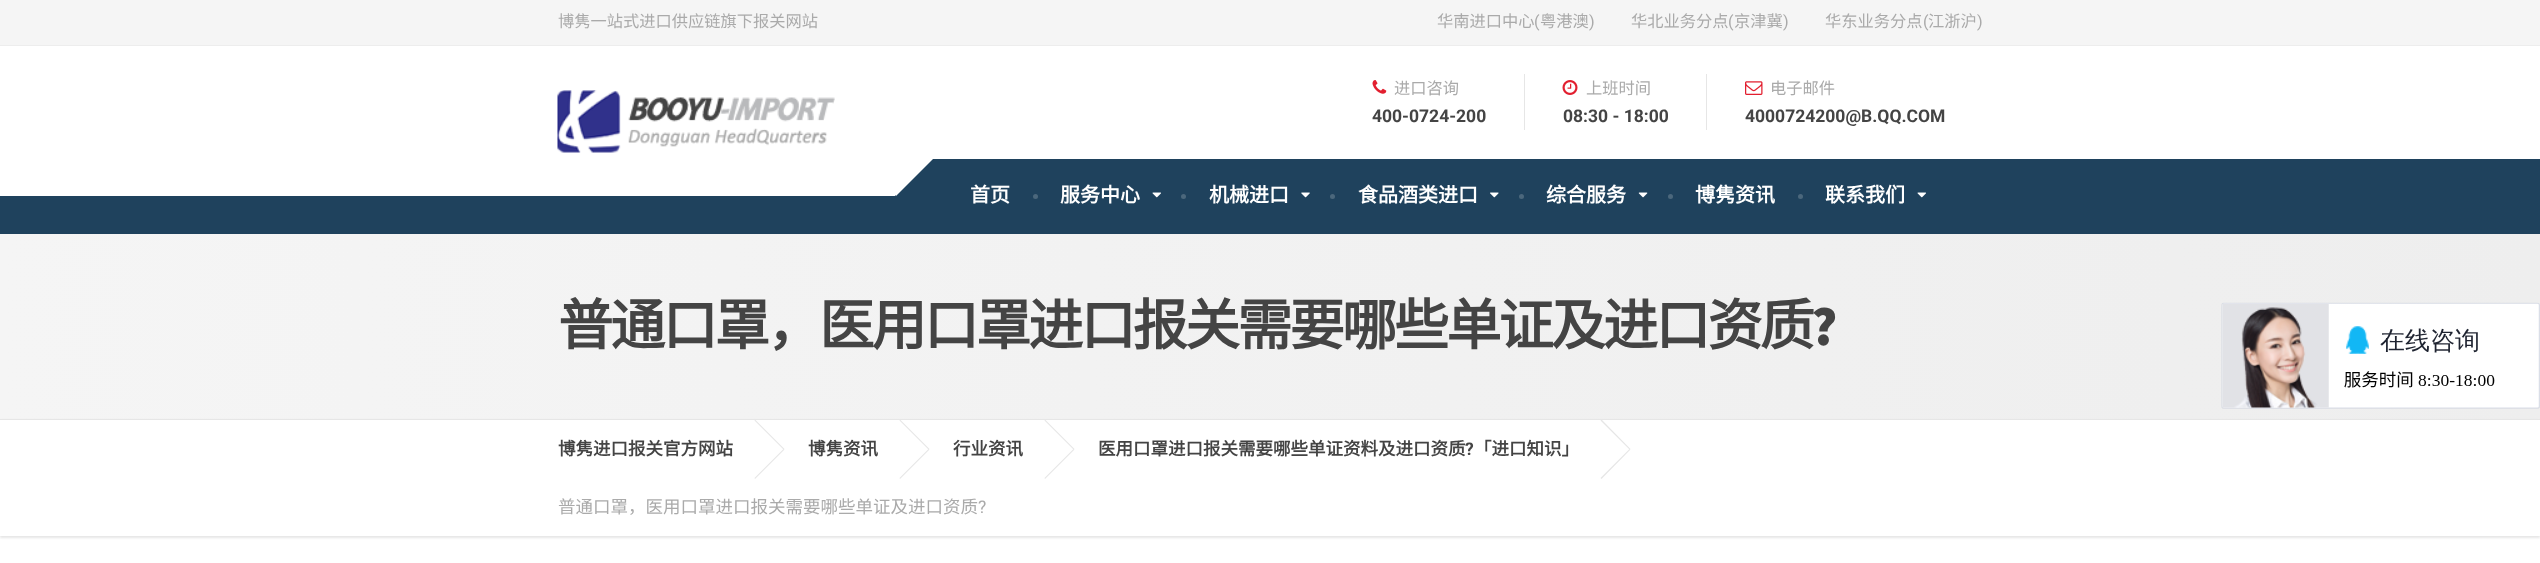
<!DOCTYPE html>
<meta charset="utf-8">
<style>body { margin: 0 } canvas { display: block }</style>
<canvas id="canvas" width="2540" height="563"></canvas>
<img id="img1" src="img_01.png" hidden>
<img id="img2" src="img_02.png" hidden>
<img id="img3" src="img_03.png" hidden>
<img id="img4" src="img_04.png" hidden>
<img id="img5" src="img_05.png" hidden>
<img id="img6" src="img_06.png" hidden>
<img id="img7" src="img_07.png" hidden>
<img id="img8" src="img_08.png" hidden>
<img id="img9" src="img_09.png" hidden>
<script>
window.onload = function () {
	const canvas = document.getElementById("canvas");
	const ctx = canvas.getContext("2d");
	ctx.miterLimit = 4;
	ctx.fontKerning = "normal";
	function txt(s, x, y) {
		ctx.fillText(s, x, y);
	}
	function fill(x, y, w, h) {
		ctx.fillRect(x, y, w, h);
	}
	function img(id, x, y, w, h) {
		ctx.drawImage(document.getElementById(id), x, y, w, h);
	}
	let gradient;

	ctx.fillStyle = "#FFFFFF";
	fill(0, 0, 2540, 563);
	ctx.fillStyle = "#F5F5F5";
	fill(0, 0, 2540, 45);
	ctx.fillStyle = "#EDEDED";
	fill(0, 45, 2540, 1);
	ctx.fillStyle = "#1F425D";
	fill(0, 159, 2540, 75);
	ctx.fillStyle = "#FFFFFF";
	fill(0, 159, 895, 37);
	img("img1", 557, 90, 278, 63);
	ctx.beginPath();
	ctx.moveTo(934, 158);
	ctx.lineTo(896, 196);
	ctx.lineTo(858, 158);
	ctx.lineTo(896, 120);
	ctx.closePath();
	ctx.fill();
	img("img2", 1372, 80, 15, 14);
	ctx.fillStyle = "#E6E6E6";
	fill(1524, 74, 1, 56);
	img("img3", 1562, 80, 16, 15);
	fill(1706, 74, 1, 56);
	img("img4", 1745, 81, 18, 14);
	gradient = ctx.createLinearGradient(0, 326, 2540, 326);
	gradient.addColorStop(0, "#F5F5F5");
	gradient.addColorStop(1, "#EEEEEE");
	ctx.fillStyle = gradient;
	fill(0, 234, 2540, 185);
	img("img5", 2221, 302, 319, 107);
	ctx.fillStyle = "#4B677C";
	ctx.beginPath();
	ctx.arc(1035.5, 196.5, 2.5, 0, Math.PI * 2);
	ctx.fill();
	ctx.beginPath();
	ctx.arc(1183.5, 196.5, 2.5, 0, Math.PI * 2);
	ctx.fill();
	img("img6", 1152, 192, 9, 6);
	ctx.beginPath();
	ctx.arc(1332.5, 196.5, 2.5, 0, Math.PI * 2);
	ctx.fill();
	img("img7", 1301, 192, 9, 6);
	ctx.beginPath();
	ctx.arc(1521.5, 196.5, 2.5, 0, Math.PI * 2);
	ctx.fill();
	img("img8", 1490, 192, 9, 6);
	ctx.beginPath();
	ctx.arc(1670.5, 196.5, 2.5, 0, Math.PI * 2);
	ctx.fill();
	img("img9", 1638, 192, 10, 6);
	ctx.beginPath();
	ctx.arc(1800.5, 196.5, 2.5, 0, Math.PI * 2);
	ctx.fill();
	img("img6", 1917, 192, 9, 6);
	ctx.save();
	ctx.beginPath();
	ctx.moveTo(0, 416);
	ctx.lineTo(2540, 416);
	ctx.lineTo(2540, 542);
	ctx.lineTo(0, 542);
	ctx.closePath();
	ctx.moveTo(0, 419);
	ctx.lineTo(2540, 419);
	ctx.lineTo(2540, 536);
	ctx.lineTo(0, 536);
	ctx.closePath();
	ctx.clip("evenodd");
	ctx.fillStyle = "#E6E6E6";
	ctx.filter = "blur(1px)";
	ctx.beginPath();
	ctx.rect(0, 420, 2540, 118);
	ctx.fill();
	ctx.filter = "none";
	ctx.restore();
	ctx.fillStyle = "#E6E6E6";
	fill(0, 419, 2540, 1);
	ctx.beginPath();
	ctx.moveTo(754.5, 420.5);
	ctx.lineTo(755, 419.5);
	ctx.lineTo(784.5, 449);
	ctx.lineTo(783.5, 449.5);
	ctx.closePath();
	ctx.fill();
	ctx.beginPath();
	ctx.moveTo(783.5, 449);
	ctx.lineTo(784.5, 449.5);
	ctx.lineTo(755, 479);
	ctx.lineTo(754.5, 478);
	ctx.closePath();
	ctx.fill();
	ctx.beginPath();
	ctx.moveTo(899.5, 420.5);
	ctx.lineTo(900, 419.5);
	ctx.lineTo(929.5, 449);
	ctx.lineTo(928.5, 449.5);
	ctx.closePath();
	ctx.fill();
	ctx.beginPath();
	ctx.moveTo(928.5, 449);
	ctx.lineTo(929.5, 449.5);
	ctx.lineTo(900, 479);
	ctx.lineTo(899.5, 478);
	ctx.closePath();
	ctx.fill();
	ctx.beginPath();
	ctx.moveTo(1044.5, 420.5);
	ctx.lineTo(1045, 419.5);
	ctx.lineTo(1074.5, 449);
	ctx.lineTo(1073.5, 449.5);
	ctx.closePath();
	ctx.fill();
	ctx.beginPath();
	ctx.moveTo(1073.5, 449);
	ctx.lineTo(1074.5, 449.5);
	ctx.lineTo(1045, 479);
	ctx.lineTo(1044.5, 478);
	ctx.closePath();
	ctx.fill();
	ctx.beginPath();
	ctx.moveTo(1600.5, 420.5);
	ctx.lineTo(1601.5, 419.5);
	ctx.lineTo(1630.5, 449);
	ctx.lineTo(1629.5, 449.5);
	ctx.closePath();
	ctx.fill();
	ctx.beginPath();
	ctx.moveTo(1629.5, 449);
	ctx.lineTo(1630.5, 449.5);
	ctx.lineTo(1601.5, 479);
	ctx.lineTo(1600.5, 478);
	ctx.closePath();
	ctx.fill();
	ctx.font = "16.25px Noto Sans CJK SC";
	ctx.fillStyle = "#AAAAAA";
	txt("博隽一站式进口供应链旗下报关网站", 558, 27);
	txt("华南进口中心", 1437, 27);
	ctx.font = "16.25px Roboto";
	txt("(", 1534, 27);
	ctx.font = "16.25px Noto Sans CJK SC";
	txt("粤港澳", 1540, 27);
	ctx.font = "16.25px Roboto";
	txt(")", 1589, 27);
	ctx.font = "16.25px Noto Sans CJK SC";
	txt("华北业务分点", 1631, 27);
	ctx.font = "16.25px Roboto";
	txt("(", 1728, 27);
	ctx.font = "16.25px Noto Sans CJK SC";
	txt("京津冀", 1734, 27);
	ctx.font = "16.25px Roboto";
	txt(")", 1783, 27);
	ctx.font = "16.25px Noto Sans CJK SC";
	txt("华东业务分点", 1825, 27);
	ctx.font = "16.25px Roboto";
	txt("(", 1923, 27);
	ctx.font = "16.25px Noto Sans CJK SC";
	txt("江浙沪", 1928, 27);
	ctx.font = "16.25px Roboto";
	txt(")", 1977, 27);
	ctx.font = "16.25px Noto Sans CJK SC";
	txt("进口咨询", 1394, 94);
	ctx.font = "bold 17.5px Roboto";
	ctx.fillStyle = "#444444";
	txt("400-0724-200", 1372, 122);
	ctx.font = "16.25px Noto Sans CJK SC";
	ctx.fillStyle = "#AAAAAA";
	txt("上班时间", 1586, 94);
	ctx.font = "bold 17.5px Roboto";
	ctx.fillStyle = "#444444";
	txt("08:30 - 18:00", 1563, 122);
	ctx.font = "16.25px Noto Sans CJK SC";
	ctx.fillStyle = "#AAAAAA";
	txt("电子邮件", 1770, 94);
	ctx.font = "bold 17.5px Roboto";
	ctx.fillStyle = "#444444";
	txt("4000724200@B.QQ.COM", 1745, 122);
	ctx.font = "bold 20px Noto Sans CJK SC";
	ctx.fillStyle = "#FFFFFF";
	txt("首页", 970, 202);
	txt("服务中心", 1060, 202);
	txt("机械进口", 1209, 202);
	txt("食品酒类进口", 1358, 202);
	txt("综合服务", 1546, 202);
	txt("博隽资讯", 1695, 202);
	txt("联系我们", 1825, 202);
	ctx.letterSpacing = "-2.75px";
	ctx.font = "bold 55px Noto Sans CJK SC";
	ctx.fillStyle = "#444444";
	txt("普通口罩，医用口罩进口报关需要哪些单证及进口资质", 558, 345);
	ctx.font = "900 55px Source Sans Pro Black";
	txt("?", 1811, 345);
	ctx.letterSpacing = "0px";
	ctx.font = "bold 17.5px Noto Sans CJK SC";
	txt("博隽进口报关官方网站", 558, 455);
	txt("博隽资讯", 808, 455);
	txt("行业资讯", 953, 455);
	txt("医用口罩进口报关需要哪些单证资料及进口资质", 1098, 455);
	ctx.font = "bold 17.5px Roboto";
	txt("?", 1465, 455);
	ctx.font = "bold 17.5px Noto Sans CJK SC";
	txt("「进口知识」", 1474, 455);
	ctx.font = "17.5px Noto Sans CJK SC";
	ctx.fillStyle = "#AAAAAA";
	txt("普通口罩，医用口罩进口报关需要哪些单证及进口资质", 558, 513);
	ctx.font = "17.5px Roboto";
	txt("?", 978, 513);
};
</script>
